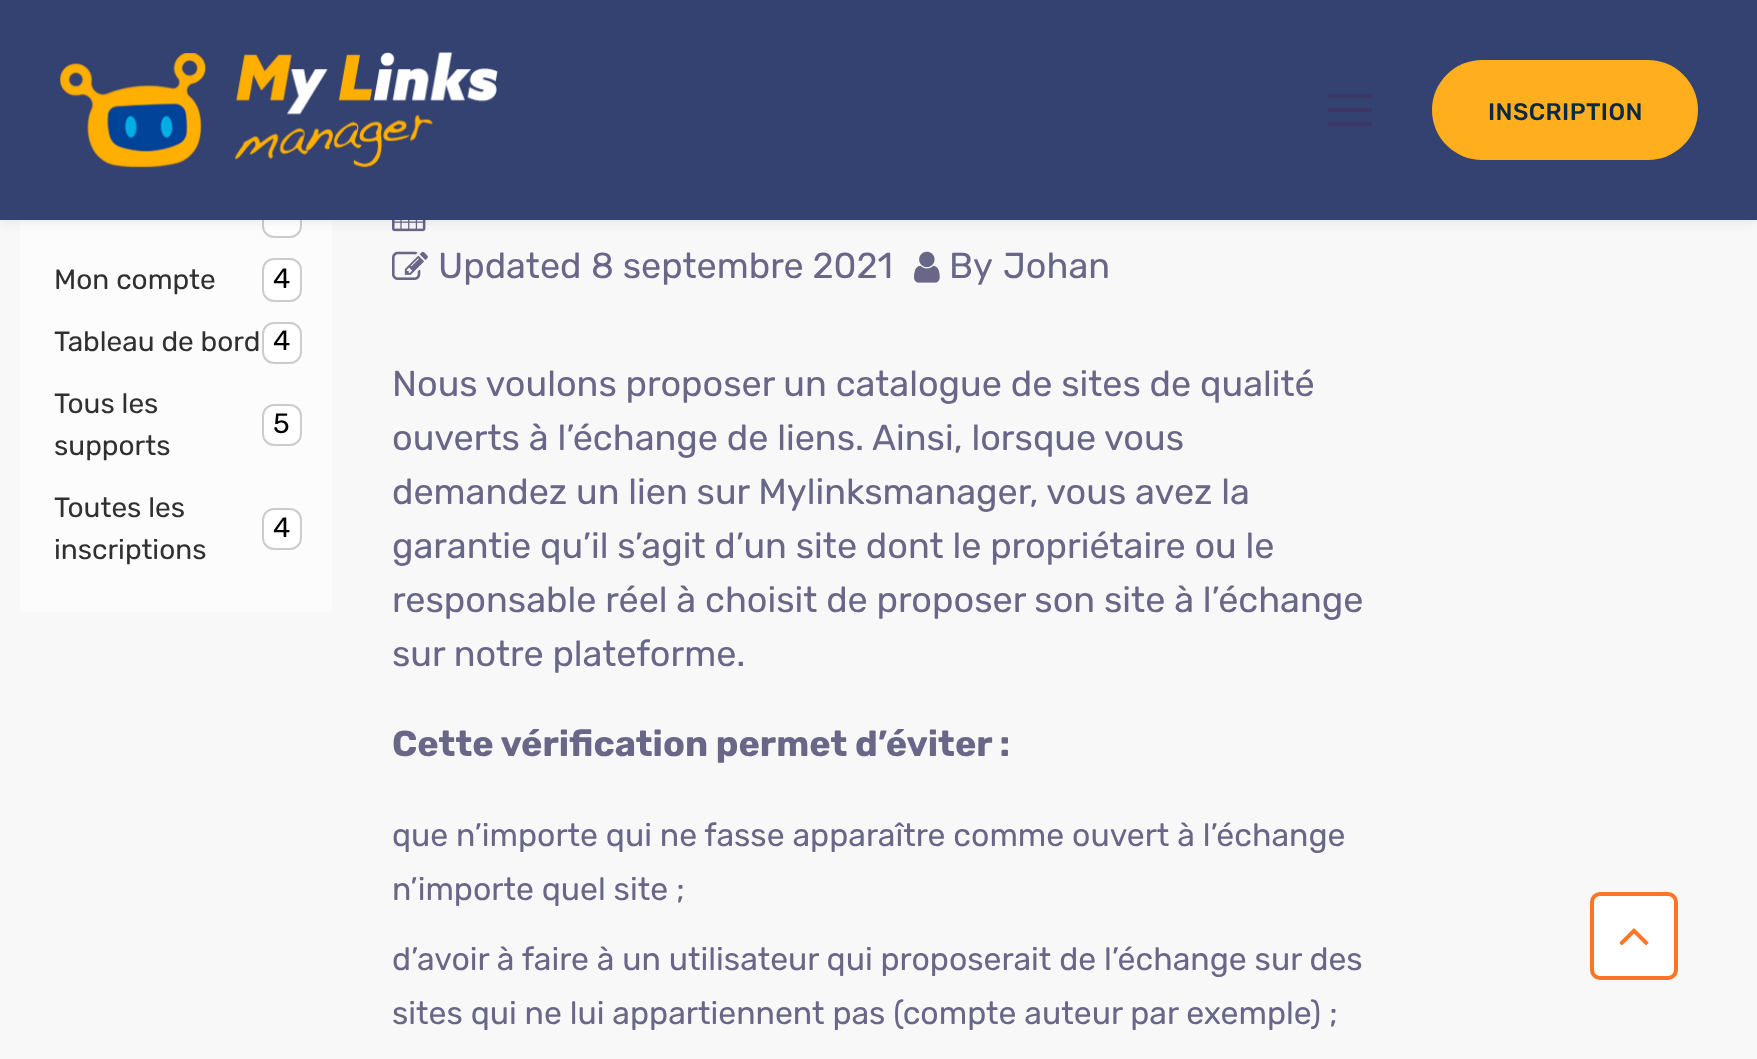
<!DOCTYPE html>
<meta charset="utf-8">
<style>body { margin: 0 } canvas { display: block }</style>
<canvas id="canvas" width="1757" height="1059"></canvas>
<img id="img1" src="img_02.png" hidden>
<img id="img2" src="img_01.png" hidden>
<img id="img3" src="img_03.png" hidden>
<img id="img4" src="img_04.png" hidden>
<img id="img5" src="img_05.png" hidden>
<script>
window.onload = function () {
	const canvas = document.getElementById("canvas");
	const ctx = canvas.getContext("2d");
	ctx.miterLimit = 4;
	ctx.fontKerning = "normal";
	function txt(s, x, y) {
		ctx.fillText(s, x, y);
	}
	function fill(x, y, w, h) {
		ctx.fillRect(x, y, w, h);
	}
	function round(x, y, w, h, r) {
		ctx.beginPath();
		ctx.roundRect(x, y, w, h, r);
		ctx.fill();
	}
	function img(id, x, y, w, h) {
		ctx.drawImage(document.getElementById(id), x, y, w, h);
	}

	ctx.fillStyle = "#F8F8F8";
	fill(0, 0, 1757, 1059);
	ctx.fillStyle = "#FCFCFC";
	fill(20, 220, 312, 392);
	ctx.fillStyle = "#FFFFFF";
	ctx.beginPath();
	ctx.roundRect(263, 197, 38, 40, 11);
	ctx.fill();
	ctx.strokeStyle = "#CCCCCC";
	ctx.lineWidth = 2;
	ctx.stroke();
	img("img1", 392, 220, 34, 12);
	ctx.fillStyle = "rgba(0, 0, 0, 0.1)";
	ctx.filter = "blur(7px)";
	ctx.beginPath();
	ctx.rect(0, 0, 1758, 220);
	ctx.fill();
	ctx.filter = "none";
	ctx.fillStyle = "#344271";
	fill(0, 0, 1757, 220);
	img("img2", 60, 52, 438, 116);
	ctx.fillStyle = "#3B3663";
	fill(1328, 108, 44, 4);
	fill(1328, 94, 44, 4);
	fill(1328, 122, 44, 4);
	ctx.beginPath();
	ctx.roundRect(1434, 62, 262, 96, 48);
	ctx.strokeStyle = "#39447D";
	ctx.lineWidth = 4;
	ctx.stroke();
	ctx.fillStyle = "#FFAE1E";
	round(1432, 60, 266, 100, 50);
	ctx.fillStyle = "#FFFFFF";
	ctx.beginPath();
	ctx.roundRect(263, 259, 38, 42, 11);
	ctx.fill();
	ctx.strokeStyle = "#CCCCCC";
	ctx.lineWidth = 2;
	ctx.stroke();
	ctx.beginPath();
	ctx.roundRect(263, 323, 38, 40, 11);
	ctx.fill();
	ctx.stroke();
	ctx.beginPath();
	ctx.roundRect(263, 405, 38, 40, 11);
	ctx.fill();
	ctx.stroke();
	ctx.beginPath();
	ctx.roundRect(263, 509, 38, 40, 11);
	ctx.fill();
	ctx.stroke();
	img("img3", 392, 251, 36, 29);
	img("img4", 914, 251, 26, 32);
	ctx.beginPath();
	ctx.roundRect(1592, 894, 84, 84, 8);
	ctx.fill();
	ctx.strokeStyle = "#FF7426";
	ctx.lineWidth = 4;
	ctx.stroke();
	img("img5", 1619, 928, 30, 18);
	ctx.letterSpacing = "0.4px";
	ctx.font = "500 24px Rubik";
	ctx.fillStyle = "#0A2A43";
	txt("INSCRIPTION", 1488, 120);
	ctx.letterSpacing = "0px";
	ctx.font = "28px Rubik";
	ctx.fillStyle = "#303030";
	txt("Mon compte", 54, 289);
	ctx.fillStyle = "#000000";
	txt("4", 273, 288);
	ctx.fillStyle = "#303030";
	txt("Tableau de bord", 54, 351);
	ctx.fillStyle = "#000000";
	txt("4", 273, 350);
	ctx.fillStyle = "#303030";
	txt("Tous les", 54, 413);
	txt("supports", 54, 455);
	ctx.fillStyle = "#000000";
	txt("5", 273, 433);
	ctx.fillStyle = "#303030";
	txt("Toutes les", 54, 517);
	txt("inscriptions", 54, 559);
	ctx.fillStyle = "#000000";
	txt("4", 273, 537);
	ctx.font = "36px Rubik";
	ctx.fillStyle = "#696687";
	txt("Updated", 438, 278);
	txt("8 septembre 2021", 591, 278);
	txt("By", 949, 278);
	txt("Johan", 1003, 278);
	txt("Nous voulons proposer un catalogue de sites de qualité", 392, 396);
	txt("ouverts à l’échange de liens. Ainsi, lorsque vous", 392, 450);
	txt("demandez un lien sur Mylinksmanager, vous avez la", 392, 504);
	txt("garantie qu’il s’agit d’un site dont le propriétaire ou le", 392, 558);
	txt("responsable réel à choisit de proposer son site à l’échange", 392, 612);
	txt("sur notre plateforme.", 392, 666);
	ctx.font = "bold 36px Rubik";
	txt("Cette vérification permet d’éviter :", 392, 756);
	ctx.font = "32px Rubik";
	txt("que n’importe qui ne fasse apparaître comme ouvert à l’échange", 392, 846);
	txt("n’importe quel site ;", 392, 900);
	txt("d’avoir à faire à un utilisateur qui proposerait de l’échange sur des", 392, 970);
	txt("sites qui ne lui appartiennent pas (compte auteur par exemple) ;", 392, 1024);
};
</script>
